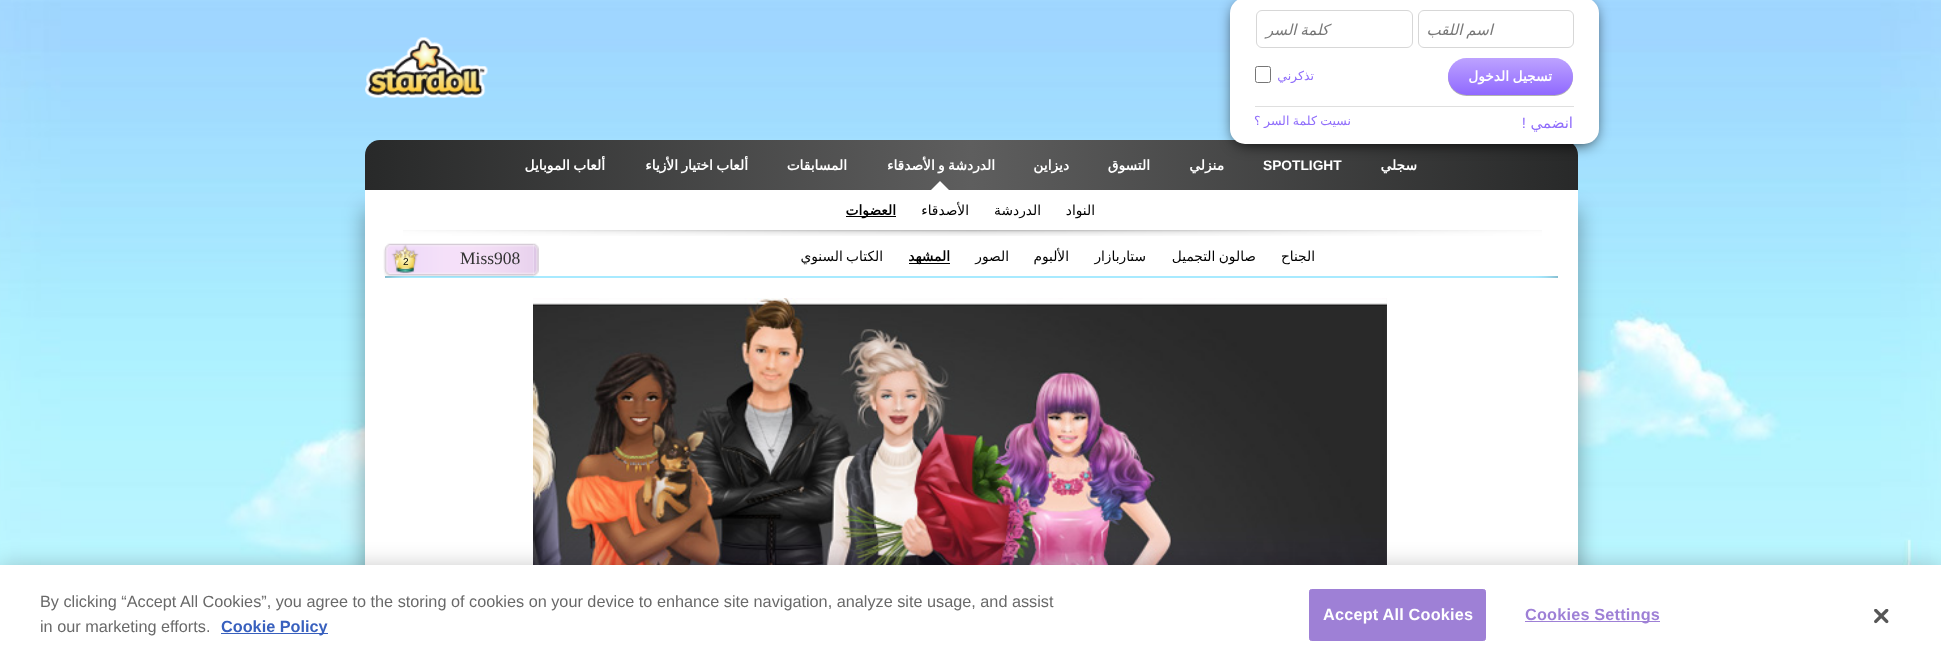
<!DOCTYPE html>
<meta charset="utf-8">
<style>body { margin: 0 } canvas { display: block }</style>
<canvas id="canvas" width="1941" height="667"></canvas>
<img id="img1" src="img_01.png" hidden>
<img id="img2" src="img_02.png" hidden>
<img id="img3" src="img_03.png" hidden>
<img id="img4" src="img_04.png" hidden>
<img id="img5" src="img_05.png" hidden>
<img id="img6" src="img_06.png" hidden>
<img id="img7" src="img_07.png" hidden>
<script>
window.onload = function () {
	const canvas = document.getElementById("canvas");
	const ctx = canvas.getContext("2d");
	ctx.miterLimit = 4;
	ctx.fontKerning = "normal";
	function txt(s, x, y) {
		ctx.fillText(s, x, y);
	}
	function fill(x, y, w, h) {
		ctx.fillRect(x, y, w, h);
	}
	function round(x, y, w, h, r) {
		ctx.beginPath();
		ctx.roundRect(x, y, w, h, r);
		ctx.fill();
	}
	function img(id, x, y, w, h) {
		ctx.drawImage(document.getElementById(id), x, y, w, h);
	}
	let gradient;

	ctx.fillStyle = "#FFFFFF";
	fill(0, 0, 1941, 667);
	img("img1", 0, 0, 1941, 565);
	ctx.fillStyle = "rgba(0, 0, 0, 0.3)";
	ctx.filter = "blur(10px)";
	ctx.beginPath();
	ctx.rect(363, 209, 25, 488);
	ctx.fill();
	ctx.filter = "none";
	ctx.filter = "blur(10px)";
	ctx.beginPath();
	ctx.rect(1555, 209, 25, 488);
	ctx.fill();
	ctx.filter = "none";
	gradient = ctx.createLinearGradient(365, 165, 1578, 165);
	gradient.addColorStop(0, "#282929");
	gradient.addColorStop(0.5, "#5E5E5E");
	gradient.addColorStop(1, "#282929");
	ctx.fillStyle = gradient;
	ctx.beginPath();
	ctx.roundRect(365, 140, 1213, 50, [15, 15, 0, 0]);
	ctx.fill();
	ctx.fillStyle = "#000000";
	ctx.filter = "blur(7.5px)";
	ctx.beginPath();
	ctx.roundRect(1235, 6, 359, 137, 10);
	ctx.fill();
	ctx.filter = "none";
	ctx.fillStyle = "#FFFFFF";
	round(1230, -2, 369, 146, 15);
	ctx.beginPath();
	ctx.roundRect(1256.5, 10.5, 156, 37, 5.5);
	ctx.strokeStyle = "#D7D7D7";
	ctx.stroke();
	ctx.beginPath();
	ctx.roundRect(1418.5, 10.5, 155, 37, 5.5);
	ctx.stroke();
	ctx.beginPath();
	ctx.roundRect(1255.5, 66.5, 15, 16, 2);
	ctx.strokeStyle = "#767676";
	ctx.stroke();
	ctx.fillStyle = "rgba(0, 0, 0, 0.3)";
	ctx.filter = "blur(0.5px)";
	ctx.beginPath();
	ctx.roundRect(1448, 59, 125, 37, 18.5);
	ctx.fill();
	ctx.filter = "none";
	gradient = ctx.createLinearGradient(1510, 57, 1510, 95);
	gradient.addColorStop(0, "#BEA4FF");
	gradient.addColorStop(1, "#9069FF");
	ctx.fillStyle = gradient;
	round(1448, 58, 125, 37, 18.5);
	ctx.fillStyle = "#DFDFDF";
	fill(1255, 106, 319, 1);
	ctx.fillStyle = "#FFFFFF";
	fill(365, 190, 1213, 86);
	ctx.beginPath();
	ctx.moveTo(950, 191);
	ctx.lineTo(930, 191);
	ctx.lineTo(940, 181);
	ctx.closePath();
	ctx.fill();
	ctx.fillStyle = "#000000";
	fill(846, 216, 50, 1);
	img("img2", 403, 230, 1139, 6);
	img("img3", 533, 243, 6, 33);
	ctx.fillStyle = "#FFFFFF";
	fill(365, 276, 20, 2);
	img("img4", 383, 243, 151, 34);
	ctx.fillStyle = "#000000";
	fill(909, 263, 41, 1);
	img("img5", 365, 37, 123, 61);
	ctx.fillStyle = "#FFFFFF";
	fill(365, 278, 1213, 287);
	img("img6", 533, 298, 854, 267);
	fill(1558, 276, 20, 2);
	ctx.fillStyle = "rgba(0, 0, 0, 0.2)";
	ctx.filter = "blur(11px)";
	ctx.beginPath();
	ctx.rect(0, 565, 1941, 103);
	ctx.fill();
	ctx.filter = "none";
	ctx.fillStyle = "#FFFFFF";
	fill(0, 565, 1941, 102);
	ctx.fillStyle = "#3860BE";
	fill(221, 633, 107, 1);
	ctx.fillStyle = "#9E80D6";
	ctx.beginPath();
	ctx.roundRect(1309.5, 589.5, 176, 51, 2);
	ctx.fill();
	ctx.strokeStyle = "#9E80D6";
	ctx.stroke();
	fill(1525, 621, 135, 1);
	img("img7", 1874, 609, 15, 15);
	ctx.wordSpacing = "-1px";
	ctx.direction = "rtl";
	ctx.font = "italic 15px DejaVu Sans";
	ctx.fillStyle = "#777777";
	txt("كلمة السر", 1329, 35);
	txt("اسم اللقب", 1493, 35);
	ctx.wordSpacing = "0px";
	ctx.font = "12.5px DejaVu Sans";
	ctx.fillStyle = "#906EFB";
	txt("تذكرني", 1314, 80);
	ctx.wordSpacing = "-1px";
	ctx.font = "bold 13.75px DejaVu Sans";
	ctx.fillStyle = "#FFFFFF";
	txt("تسجيل الدخول", 1552, 81);
	ctx.wordSpacing = "-0.5px";
	ctx.font = "12.5px DejaVu Sans";
	ctx.fillStyle = "#906EFB";
	txt("نسيت كلمة السر ؟", 1351, 125);
	ctx.wordSpacing = "0px";
	ctx.font = "15px Liberation Sans";
	txt("!", 1526, 128);
	ctx.font = "15px DejaVu Sans";
	txt("انضمي", 1573, 128);
	ctx.wordSpacing = "-1px";
	ctx.font = "bold 13.75px DejaVu Sans";
	ctx.fillStyle = "#FFFFFF";
	txt("ألعاب الموبايل", 605, 170);
	txt("ألعاب اختيار الأزياء", 748, 170);
	ctx.wordSpacing = "0px";
	txt("المسابقات", 847, 170);
	ctx.wordSpacing = "-1px";
	txt("الدردشة و الأصدقاء", 995, 170);
	ctx.wordSpacing = "0px";
	txt("ديزاين", 1069, 170);
	txt("التسوق", 1150, 170);
	txt("منزلي", 1224, 170);
	ctx.direction = "ltr";
	ctx.font = "bold 13.75px Liberation Sans";
	txt("SPOTLIGHT", 1263, 170);
	ctx.direction = "rtl";
	ctx.font = "bold 13.75px DejaVu Sans";
	txt("سجلي", 1417, 170);
	ctx.fillStyle = "#000000";
	txt("العضوات", 896, 215);
	ctx.font = "13.75px DejaVu Sans";
	txt("الأصدقاء", 969, 215);
	txt("الدردشة", 1041, 215);
	txt("النواد", 1095, 215);
	ctx.direction = "ltr";
	ctx.font = "10px Liberation Sans";
	txt("2", 403, 265);
	ctx.font = "17.5px Liberation Serif";
	ctx.fillStyle = "#333333";
	txt("Miss908", 460, 264);
	ctx.wordSpacing = "-1px";
	ctx.direction = "rtl";
	ctx.font = "13.75px DejaVu Sans";
	ctx.fillStyle = "#000000";
	txt("الكتاب السنوي", 883, 261);
	ctx.wordSpacing = "0px";
	ctx.font = "bold 13.75px DejaVu Sans";
	txt("المشهد", 950, 261);
	ctx.font = "13.75px DejaVu Sans";
	txt("الصور", 1009, 261);
	txt("الألبوم", 1069, 261);
	txt("ستاربازار", 1146, 261);
	ctx.wordSpacing = "-1px";
	txt("صالون التجميل", 1256, 261);
	ctx.wordSpacing = "0px";
	txt("الجناح", 1315, 261);
	ctx.direction = "ltr";
	ctx.font = "16.25px Liberation Sans";
	ctx.fillStyle = "#696969";
	txt("By clicking “Accept All Cookies”, you agree to the storing of cookies on your device to enhance site navigation, analyze site usage, and assist", 40, 607);
	txt("in our marketing efforts.", 40, 632);
	ctx.font = "bold 16.25px Liberation Sans";
	ctx.fillStyle = "#3860BE";
	txt("Cookie Policy", 221, 632);
	ctx.letterSpacing = "0.2px";
	ctx.fillStyle = "#FFFFFF";
	txt("Accept All Cookies", 1323, 620);
	ctx.fillStyle = "#9E80D6";
	txt("Cookies Settings", 1525, 620);
};
</script>
